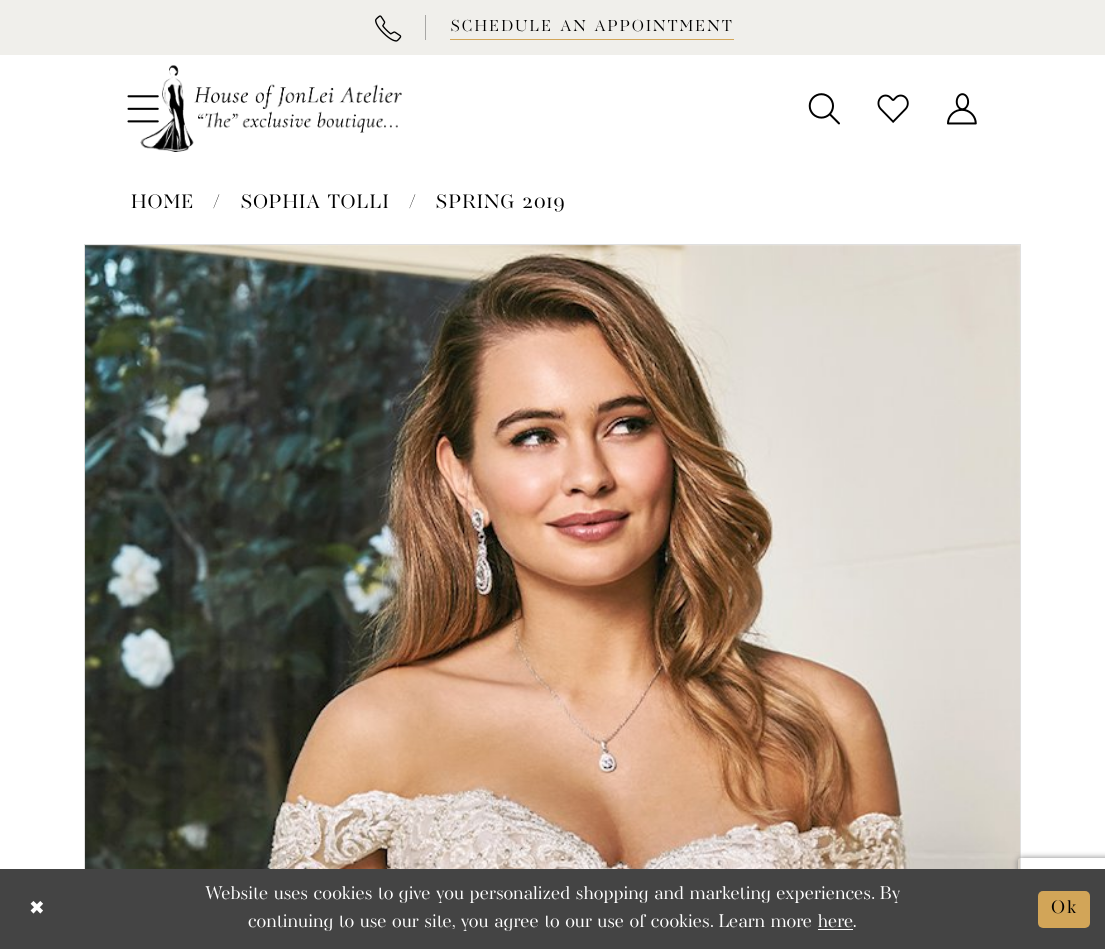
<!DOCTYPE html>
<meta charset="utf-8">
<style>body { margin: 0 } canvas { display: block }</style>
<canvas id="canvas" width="1105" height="949"></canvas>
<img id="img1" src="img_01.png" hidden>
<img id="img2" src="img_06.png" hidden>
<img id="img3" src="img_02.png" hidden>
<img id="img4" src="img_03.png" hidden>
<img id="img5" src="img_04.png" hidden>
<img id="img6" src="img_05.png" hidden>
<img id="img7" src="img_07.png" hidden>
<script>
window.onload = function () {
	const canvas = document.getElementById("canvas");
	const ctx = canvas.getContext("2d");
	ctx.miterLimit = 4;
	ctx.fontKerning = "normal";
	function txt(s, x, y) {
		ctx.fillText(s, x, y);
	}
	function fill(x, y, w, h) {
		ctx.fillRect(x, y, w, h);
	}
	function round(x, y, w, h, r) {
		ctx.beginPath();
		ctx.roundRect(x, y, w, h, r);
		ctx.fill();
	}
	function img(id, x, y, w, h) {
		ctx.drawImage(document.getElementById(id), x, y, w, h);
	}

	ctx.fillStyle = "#FFFFFF";
	fill(0, 0, 1105, 949);
	ctx.fillStyle = "#F0EFEB";
	fill(0, 0, 1105, 55);
	img("img1", 375, 15, 27, 27);
	ctx.fillStyle = "#A8A7A5";
	fill(425, 15, 1, 25);
	ctx.fillStyle = "#D2A558";
	fill(450, 39, 284, 1);
	img("img2", 127, 95, 32, 28);
	img("img3", 140, 65, 262, 87);
	img("img4", 808, 93, 32, 32);
	img("img5", 877, 94, 32, 29);
	img("img6", 947, 93, 30, 32);
	ctx.strokeStyle = "#E0E0E0";
	ctx.strokeRect(84.5, 244.5, 936, 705);
	img("img7", 85, 245, 935, 624);
	ctx.save();
	ctx.beginPath();
	ctx.moveTo(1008, 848);
	ctx.lineTo(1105, 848);
	ctx.lineTo(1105, 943);
	ctx.lineTo(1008, 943);
	ctx.closePath();
	ctx.moveTo(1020.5, 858);
	ctx.lineTo(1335.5, 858);
	ctx.bezierCurveTo(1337, 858, 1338, 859, 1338, 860.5);
	ctx.lineTo(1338, 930.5);
	ctx.bezierCurveTo(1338, 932, 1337, 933, 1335.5, 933);
	ctx.lineTo(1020.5, 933);
	ctx.bezierCurveTo(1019, 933, 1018, 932, 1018, 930.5);
	ctx.lineTo(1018, 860.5);
	ctx.bezierCurveTo(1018, 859, 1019, 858, 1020.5, 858);
	ctx.closePath();
	ctx.clip("evenodd");
	ctx.fillStyle = "#808080";
	ctx.filter = "blur(3px)";
	ctx.beginPath();
	ctx.roundRect(1018, 858, 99, 75, 2.5);
	ctx.fill();
	ctx.filter = "none";
	ctx.restore();
	ctx.fillStyle = "#444444";
	fill(0, 869, 1105, 80);
	ctx.fillStyle = "#FFFFFF";
	fill(818, 929, 35, 1);
	ctx.fillStyle = "#D2A558";
	round(1038, 891, 52, 37, 5);
	ctx.letterSpacing = "2px";
	ctx.font = "300 16.25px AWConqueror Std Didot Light";
	ctx.fillStyle = "#000000";
	txt("SCHEDULE AN APPOINTMENT", 450, 31);
	ctx.letterSpacing = "0.9px";
	ctx.font = "20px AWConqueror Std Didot";
	txt("HOME", 131, 208);
	txt("/", 213, 208);
	txt("SOPHIA TOLLI", 240, 208);
	txt("/", 409, 208);
	txt("SPRING 2019", 435, 208);
	ctx.letterSpacing = "2px";
	ctx.font = "18.75px DejaVu Sans";
	ctx.fillStyle = "#FFFFFF";
	txt("✖", 29, 914);
	ctx.letterSpacing = "0px";
	ctx.font = "300 18.75px AWConqueror Std Didot Light";
	txt("Website uses cookies to give you personalized shopping and marketing experiences. By", 205, 899);
	txt("continuing to use our site, you agree to our use of cookies. Learn more here", 248, 927);
	txt(".", 852, 927);
	ctx.letterSpacing = "2px";
	ctx.font = "18.75px AWConqueror Std Didot";
	ctx.fillStyle = "#000000";
	txt("Ok", 1051, 913);
};
</script>
